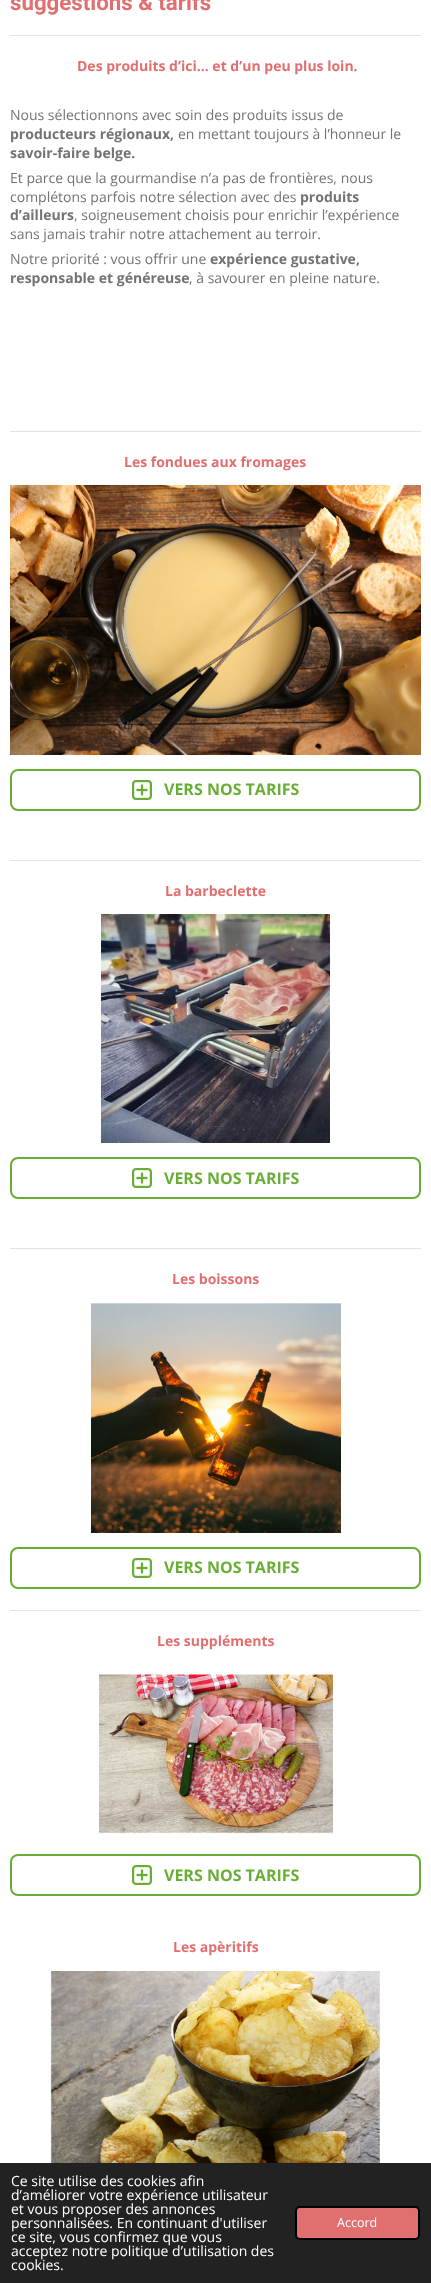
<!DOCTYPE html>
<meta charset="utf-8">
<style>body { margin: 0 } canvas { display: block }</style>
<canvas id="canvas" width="431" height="2283"></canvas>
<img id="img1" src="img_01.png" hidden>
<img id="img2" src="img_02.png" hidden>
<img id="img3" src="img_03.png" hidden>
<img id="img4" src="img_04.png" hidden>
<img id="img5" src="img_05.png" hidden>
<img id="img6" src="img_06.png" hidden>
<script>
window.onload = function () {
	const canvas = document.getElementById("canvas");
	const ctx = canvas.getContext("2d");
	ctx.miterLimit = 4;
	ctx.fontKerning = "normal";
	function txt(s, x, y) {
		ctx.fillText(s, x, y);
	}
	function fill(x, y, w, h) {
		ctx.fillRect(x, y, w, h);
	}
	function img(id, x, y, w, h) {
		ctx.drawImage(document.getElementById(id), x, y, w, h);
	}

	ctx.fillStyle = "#FFFFFF";
	fill(0, 0, 431, 2283);
	ctx.fillStyle = "#E3E3E3";
	fill(10, 35, 411, 1);
	fill(10, 431, 411, 1);
	img("img1", 10, 485, 411, 270);
	ctx.beginPath();
	ctx.roundRect(11, 770, 409, 40, 7);
	ctx.strokeStyle = "#68AE34";
	ctx.lineWidth = 2;
	ctx.stroke();
	img("img2", 132, 780, 20, 20);
	fill(10, 860, 411, 1);
	img("img3", 101, 914, 229, 229);
	ctx.beginPath();
	ctx.roundRect(11, 1158, 409, 40, 7);
	ctx.stroke();
	img("img2", 132, 1168, 20, 20);
	fill(10, 1248, 411, 1);
	img("img4", 91, 1303, 250, 230);
	ctx.beginPath();
	ctx.roundRect(11, 1548, 409, 40, 7);
	ctx.stroke();
	img("img2", 132, 1558, 20, 20);
	fill(10, 1610, 411, 1);
	img("img5", 99, 1674, 234, 160);
	ctx.beginPath();
	ctx.roundRect(11, 1855, 409, 40, 7);
	ctx.stroke();
	img("img2", 132, 1865, 20, 20);
	img("img6", 50, 1971, 330, 192);
	ctx.fillStyle = "#222222";
	fill(0, 2163, 431, 120);
	ctx.fillStyle = "#E26F6F";
	ctx.beginPath();
	ctx.roundRect(296, 2207, 123, 32, 4);
	ctx.fill();
	ctx.strokeStyle = "#000000";
	ctx.stroke();
	ctx.font = "bold 22.25px Roboto";
	txt("suggestions & tarifs", 10, 10);
	ctx.font = "bold 14px Open Sans";
	txt("Des produits d’ici… et d’un peu plus loin.", 77, 71);
	ctx.font = "14px Open Sans";
	ctx.fillStyle = "#737373";
	txt("Nous sélectionnons avec soin des produits issus de", 10, 120);
	ctx.font = "bold 14px Open Sans";
	txt("producteurs régionaux,", 10, 139);
	ctx.font = "14px Open Sans";
	txt("en mettant toujours à l’honneur le", 178, 139);
	ctx.font = "bold 14px Open Sans";
	txt("savoir-faire belge.", 10, 158);
	ctx.font = "14px Open Sans";
	txt("Et parce que la gourmandise n’a pas de frontières, nous", 10, 183);
	txt("complétons parfois notre sélection avec des", 10, 202);
	ctx.font = "bold 14px Open Sans";
	txt("produits", 300, 202);
	txt("d’ailleurs", 10, 220);
	ctx.font = "14px Open Sans";
	txt(", soigneusement choisis pour enrichir l’expérience", 74, 220);
	txt("sans jamais trahir notre attachement au terroir.", 10, 239);
	txt("Notre priorité : vous offrir une", 10, 264);
	ctx.font = "bold 14px Open Sans";
	txt("expérience gustative,", 210, 264);
	txt("responsable et généreuse", 10, 283);
	ctx.font = "14px Open Sans";
	txt(", à savourer en pleine nature.", 189, 283);
	ctx.font = "bold 14px Open Sans";
	ctx.fillStyle = "#E26F6F";
	txt("Les fondues aux fromages", 124, 467);
	ctx.font = "bold 16px Open Sans";
	ctx.fillStyle = "#68AE34";
	txt("VERS NOS TARIFS", 164, 795);
	ctx.font = "bold 14px Open Sans";
	ctx.fillStyle = "#E26F6F";
	txt("La barbeclette", 165, 896);
	ctx.font = "bold 16px Open Sans";
	ctx.fillStyle = "#68AE34";
	txt("VERS NOS TARIFS", 164, 1184);
	ctx.font = "bold 14px Open Sans";
	ctx.fillStyle = "#E26F6F";
	txt("Les boissons", 172, 1284);
	ctx.font = "bold 16px Open Sans";
	ctx.fillStyle = "#68AE34";
	txt("VERS NOS TARIFS", 164, 1573);
	ctx.font = "bold 14px Open Sans";
	ctx.fillStyle = "#E26F6F";
	txt("Les suppléments", 157, 1646);
	ctx.font = "bold 16px Open Sans";
	ctx.fillStyle = "#68AE34";
	txt("VERS NOS TARIFS", 164, 1881);
	ctx.font = "bold 14px Open Sans";
	ctx.fillStyle = "#E26F6F";
	txt("Les apèritifs", 173, 1952);
	ctx.font = "14px Open Sans";
	ctx.fillStyle = "#FFFFFF";
	txt("Ce site utilise des cookies afin", 11, 2186);
	txt("d’améliorer votre expérience utilisateur", 11, 2200);
	txt("et vous proposer des annonces", 11, 2214);
	txt("personnalisées. En continuant d'utiliser", 11, 2228);
	txt("ce site, vous confirmez que vous", 11, 2242);
	txt("acceptez notre politique d’utilisation des", 11, 2256);
	txt("cookies.", 11, 2270);
	ctx.font = "12.5px Open Sans";
	txt("Accord", 337, 2227);
};
</script>
